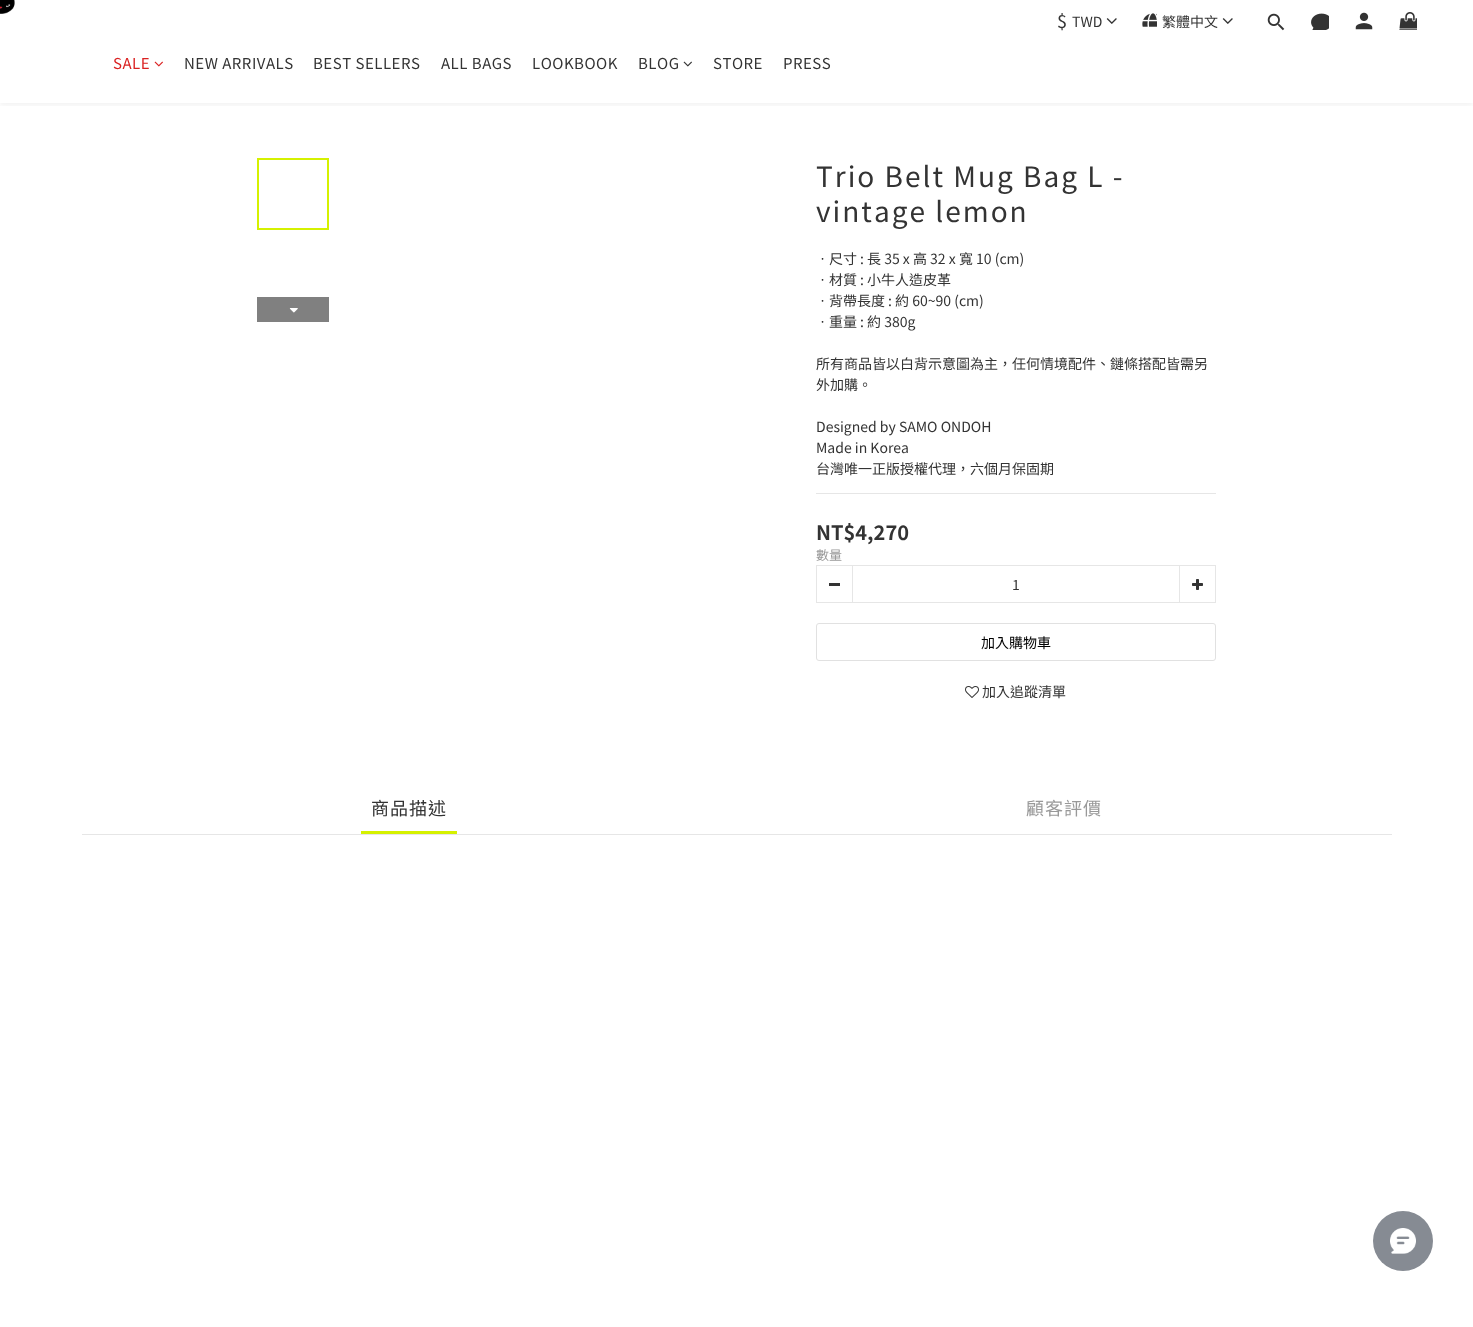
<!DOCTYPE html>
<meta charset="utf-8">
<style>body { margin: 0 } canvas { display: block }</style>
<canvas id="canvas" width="1473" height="1327"></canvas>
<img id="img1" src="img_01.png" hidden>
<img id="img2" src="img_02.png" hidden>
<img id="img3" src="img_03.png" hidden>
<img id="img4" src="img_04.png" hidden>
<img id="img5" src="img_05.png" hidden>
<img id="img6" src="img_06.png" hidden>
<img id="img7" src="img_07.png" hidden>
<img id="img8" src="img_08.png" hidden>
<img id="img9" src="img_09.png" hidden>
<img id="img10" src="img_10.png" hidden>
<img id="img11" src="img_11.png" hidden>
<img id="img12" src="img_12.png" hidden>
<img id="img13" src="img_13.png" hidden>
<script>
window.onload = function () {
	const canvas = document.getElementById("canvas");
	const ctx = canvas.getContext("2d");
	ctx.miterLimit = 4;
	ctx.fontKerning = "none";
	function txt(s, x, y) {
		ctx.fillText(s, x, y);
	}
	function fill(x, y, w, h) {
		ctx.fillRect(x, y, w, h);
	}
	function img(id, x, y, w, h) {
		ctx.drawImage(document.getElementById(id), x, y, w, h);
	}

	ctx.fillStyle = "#FFFFFF";
	fill(0, 0, 1473, 1327);
	ctx.save();
	ctx.beginPath();
	ctx.rect(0, 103, 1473, 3);
	ctx.clip();
	ctx.fillStyle = "rgba(0, 0, 0, 0.06)";
	ctx.filter = "blur(3px)";
	ctx.beginPath();
	ctx.rect(0, 2, 1473, 103);
	ctx.fill();
	ctx.filter = "none";
	ctx.restore();
	img("img1", 0, 0, 15, 14);
	img("img2", 1106, 18, 11, 6);
	img("img3", 1142, 13, 15, 14);
	img("img2", 1222, 18, 11, 6);
	img("img4", 1267, 13, 18, 18);
	img("img5", 1311, 13, 18, 17);
	img("img6", 1355, 12, 18, 18);
	img("img7", 1399, 12, 18, 18);
	img("img8", 154, 61, 9, 6);
	img("img9", 683, 61, 9, 6);
	ctx.strokeStyle = "#D5F100";
	ctx.lineWidth = 2;
	ctx.strokeRect(258, 159, 70, 70);
	ctx.fillStyle = "#808080";
	fill(257, 297, 72, 25);
	img("img10", 289, 308, 9, 5);
	ctx.fillStyle = "#E6E6E6";
	fill(816, 493, 400, 1);
	fill(852, 565, 328, 1);
	fill(852, 602, 328, 1);
	ctx.strokeStyle = "#E6E6E6";
	ctx.lineWidth = 1;
	ctx.strokeRect(816.5, 565.5, 36, 37);
	ctx.fillStyle = "#333333";
	fill(829, 583, 11, 3);
	ctx.strokeRect(1179.5, 565.5, 36, 37);
	img("img11", 1192, 579, 11, 11);
	ctx.beginPath();
	ctx.roundRect(816.5, 623.5, 399, 37, 2.5);
	ctx.strokeStyle = "#E1E1E1";
	ctx.stroke();
	img("img12", 965, 686, 14, 12);
	ctx.fillStyle = "#E6E6E6";
	fill(82, 834, 1310, 1);
	ctx.fillStyle = "#D5F100";
	fill(361, 831, 96, 3);
	ctx.fillStyle = "#868B93";
	ctx.beginPath();
	ctx.arc(1403, 1241, 30, 0, Math.PI * 2);
	ctx.fill();
	img("img13", 1390, 1228, 26, 26);
	ctx.letterSpacing = "1px";
	ctx.font = "18px Noto Sans TC";
	ctx.fillStyle = "#333333";
	txt("$", 1057, 28);
	ctx.letterSpacing = "0px";
	ctx.font = "14px Noto Sans TC";
	txt("TWD", 1072, 27);
	txt("繁體中文", 1162, 27);
	ctx.letterSpacing = "0.5px";
	ctx.font = "15px Noto Sans TC";
	ctx.fillStyle = "#DA2121";
	txt("SALE", 113, 69);
	ctx.fillStyle = "#333333";
	txt("NEW ARRIVALS", 184, 69);
	txt("BEST SELLERS", 313, 69);
	txt("ALL BAGS", 441, 69);
	txt("LOOKBOOK", 532, 69);
	txt("BLOG", 638, 69);
	txt("STORE", 713, 69);
	txt("PRESS", 783, 69);
	ctx.letterSpacing = "2px";
	ctx.font = "28px Noto Sans TC";
	txt("Trio Belt Mug Bag L -", 816, 187);
	txt("vintage lemon", 816, 222);
	ctx.letterSpacing = "0px";
	ctx.font = "14px Noto Sans TC";
	txt("ㆍ尺寸 : 長 35 x 高 32 x 寬 10 (cm)", 816, 264);
	txt("ㆍ材質 : 小牛人造皮革", 816, 285);
	txt("ㆍ背帶長度 : 約 60~90 (cm)", 816, 306);
	txt("ㆍ重量 : 約 380g", 816, 327);
	txt("所有商品皆以白背示意圖為主，任何情境配件、鏈條搭配皆需另", 816, 369);
	txt("外加購。", 816, 390);
	txt("Designed by SAMO ONDOH", 816, 432);
	txt("Made in Korea", 816, 453);
	txt("台灣唯一正版授權代理，六個月保固期", 816, 474);
	ctx.font = "bold 20px Noto Sans TC";
	txt("NT$4,270", 816, 540);
	ctx.font = "13px Noto Sans TC";
	ctx.fillStyle = "#999999";
	txt("數量", 816, 560);
	ctx.font = "14px Noto Sans TC";
	ctx.fillStyle = "#333333";
	txt("1", 1012, 590);
	ctx.fillStyle = "#000000";
	txt("加入購物車", 981, 648);
	ctx.fillStyle = "#333333";
	txt("加入追蹤清單", 982, 697);
	ctx.letterSpacing = "1px";
	ctx.font = "18px Noto Sans TC";
	txt("商品描述", 371, 815);
	ctx.fillStyle = "#999999";
	txt("顧客評價", 1026, 815);
};
</script>
